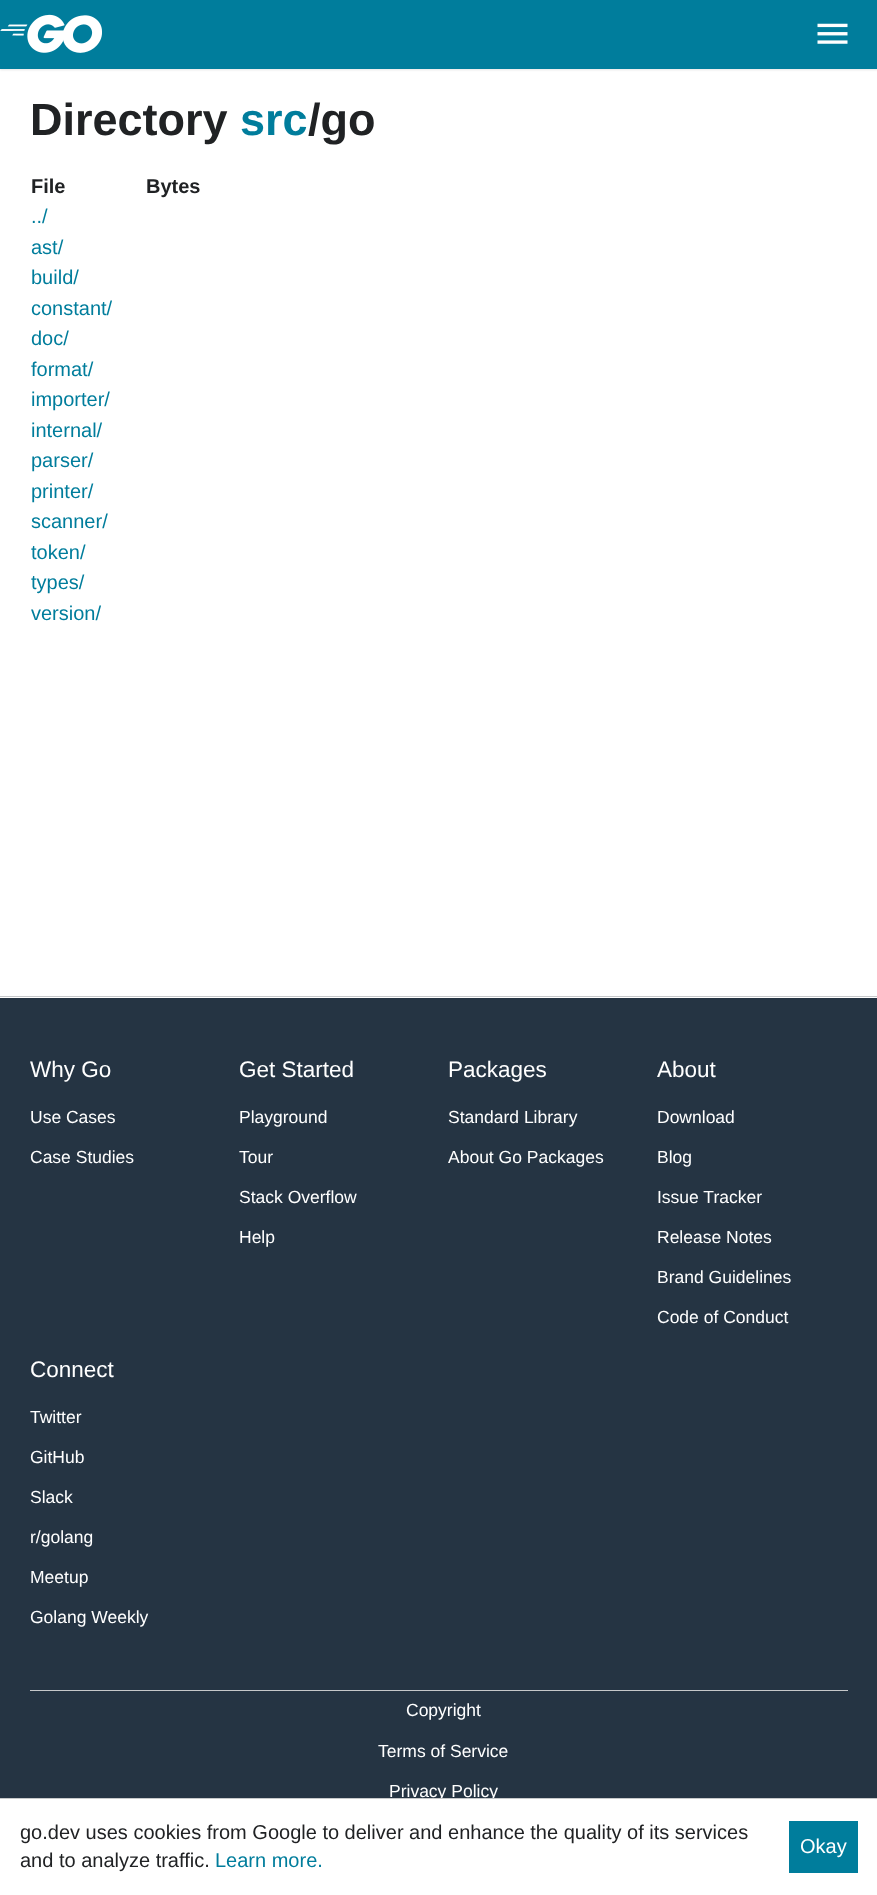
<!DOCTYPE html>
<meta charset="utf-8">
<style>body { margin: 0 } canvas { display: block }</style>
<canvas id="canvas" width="877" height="1895"></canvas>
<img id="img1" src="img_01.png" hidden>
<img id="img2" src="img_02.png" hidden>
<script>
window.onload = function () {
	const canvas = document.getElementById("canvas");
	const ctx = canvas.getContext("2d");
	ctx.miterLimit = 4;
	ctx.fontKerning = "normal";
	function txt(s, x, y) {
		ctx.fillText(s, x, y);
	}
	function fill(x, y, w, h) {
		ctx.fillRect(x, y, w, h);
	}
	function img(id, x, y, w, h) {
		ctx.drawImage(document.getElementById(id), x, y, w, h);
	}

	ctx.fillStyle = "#FFFFFF";
	fill(0, 0, 877, 1895);
	ctx.fillStyle = "rgba(171, 171, 171, 0.3)";
	ctx.filter = "blur(1px)";
	ctx.beginPath();
	ctx.rect(0, 0, 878, 70);
	ctx.fill();
	ctx.filter = "none";
	ctx.fillStyle = "#007D9C";
	fill(0, 0, 877, 69);
	img("img1", 0, 14, 102, 39);
	img("img2", 817, 23, 31, 21);
	ctx.fillStyle = "#C6C8CA";
	fill(0, 996, 877, 1);
	ctx.fillStyle = "#253443";
	fill(0, 998, 877, 800);
	ctx.fillStyle = "#C6C8CA";
	fill(30, 1690, 818, 1);
	ctx.fillStyle = "#007D9C";
	fill(789, 1821, 69, 52);
	ctx.font = "bold 45px Liberation Sans";
	ctx.fillStyle = "#202224";
	txt("Directory", 30, 135);
	ctx.fillStyle = "#007D9C";
	txt("src", 240, 135);
	ctx.fillStyle = "#202224";
	txt("/go", 308, 135);
	ctx.font = "bold 20px Liberation Sans";
	txt("File", 31, 193);
	txt("Bytes", 146, 193);
	ctx.font = "20px Liberation Sans";
	ctx.fillStyle = "#007D9C";
	txt("../", 31, 223);
	txt("ast/", 31, 254);
	txt("build/", 31, 284);
	txt("constant/", 31, 315);
	txt("doc/", 31, 345);
	txt("format/", 31, 376);
	txt("importer/", 31, 406);
	txt("internal/", 31, 437);
	txt("parser/", 31, 467);
	txt("printer/", 31, 498);
	txt("scanner/", 31, 528);
	txt("token/", 31, 559);
	txt("types/", 31, 589);
	txt("version/", 31, 620);
	ctx.font = "22.5px Liberation Sans";
	ctx.fillStyle = "#FFFFFF";
	txt("Why Go", 30, 1077);
	ctx.font = "17.5px Liberation Sans";
	txt("Use Cases", 30, 1123);
	txt("Case Studies", 30, 1163);
	ctx.font = "22.5px Liberation Sans";
	txt("Get Started", 239, 1077);
	ctx.font = "17.5px Liberation Sans";
	txt("Playground", 239, 1123);
	txt("Tour", 239, 1163);
	txt("Stack Overflow", 239, 1203);
	txt("Help", 239, 1243);
	ctx.font = "22.5px Liberation Sans";
	txt("Packages", 448, 1077);
	ctx.font = "17.5px Liberation Sans";
	txt("Standard Library", 448, 1123);
	txt("About Go Packages", 448, 1163);
	ctx.font = "22.5px Liberation Sans";
	txt("About", 657, 1077);
	ctx.font = "17.5px Liberation Sans";
	txt("Download", 657, 1123);
	txt("Blog", 657, 1163);
	txt("Issue Tracker", 657, 1203);
	txt("Release Notes", 657, 1243);
	txt("Brand Guidelines", 657, 1283);
	txt("Code of Conduct", 657, 1323);
	ctx.font = "22.5px Liberation Sans";
	txt("Connect", 30, 1377);
	ctx.font = "17.5px Liberation Sans";
	txt("Twitter", 30, 1423);
	txt("GitHub", 30, 1463);
	txt("Slack", 30, 1503);
	txt("r/golang", 30, 1543);
	txt("Meetup", 30, 1583);
	txt("Golang Weekly", 30, 1623);
	txt("Copyright", 406, 1716);
	txt("Terms of Service", 378, 1757);
	txt("Privacy Policy", 389, 1797);
	ctx.fillStyle = "#C6C8CA";
	fill(0, 1798, 877, 1);
	ctx.font = "20px Liberation Sans";
	ctx.fillStyle = "#202224";
	txt("go.dev uses cookies from Google to deliver and enhance the quality of its services", 20, 1839);
	txt("and to analyze traffic.", 20, 1867);
	ctx.fillStyle = "#007D9C";
	txt("Learn more.", 215, 1867);
	ctx.fillStyle = "#FFFFFF";
	txt("Okay", 800, 1853);
};
</script>
